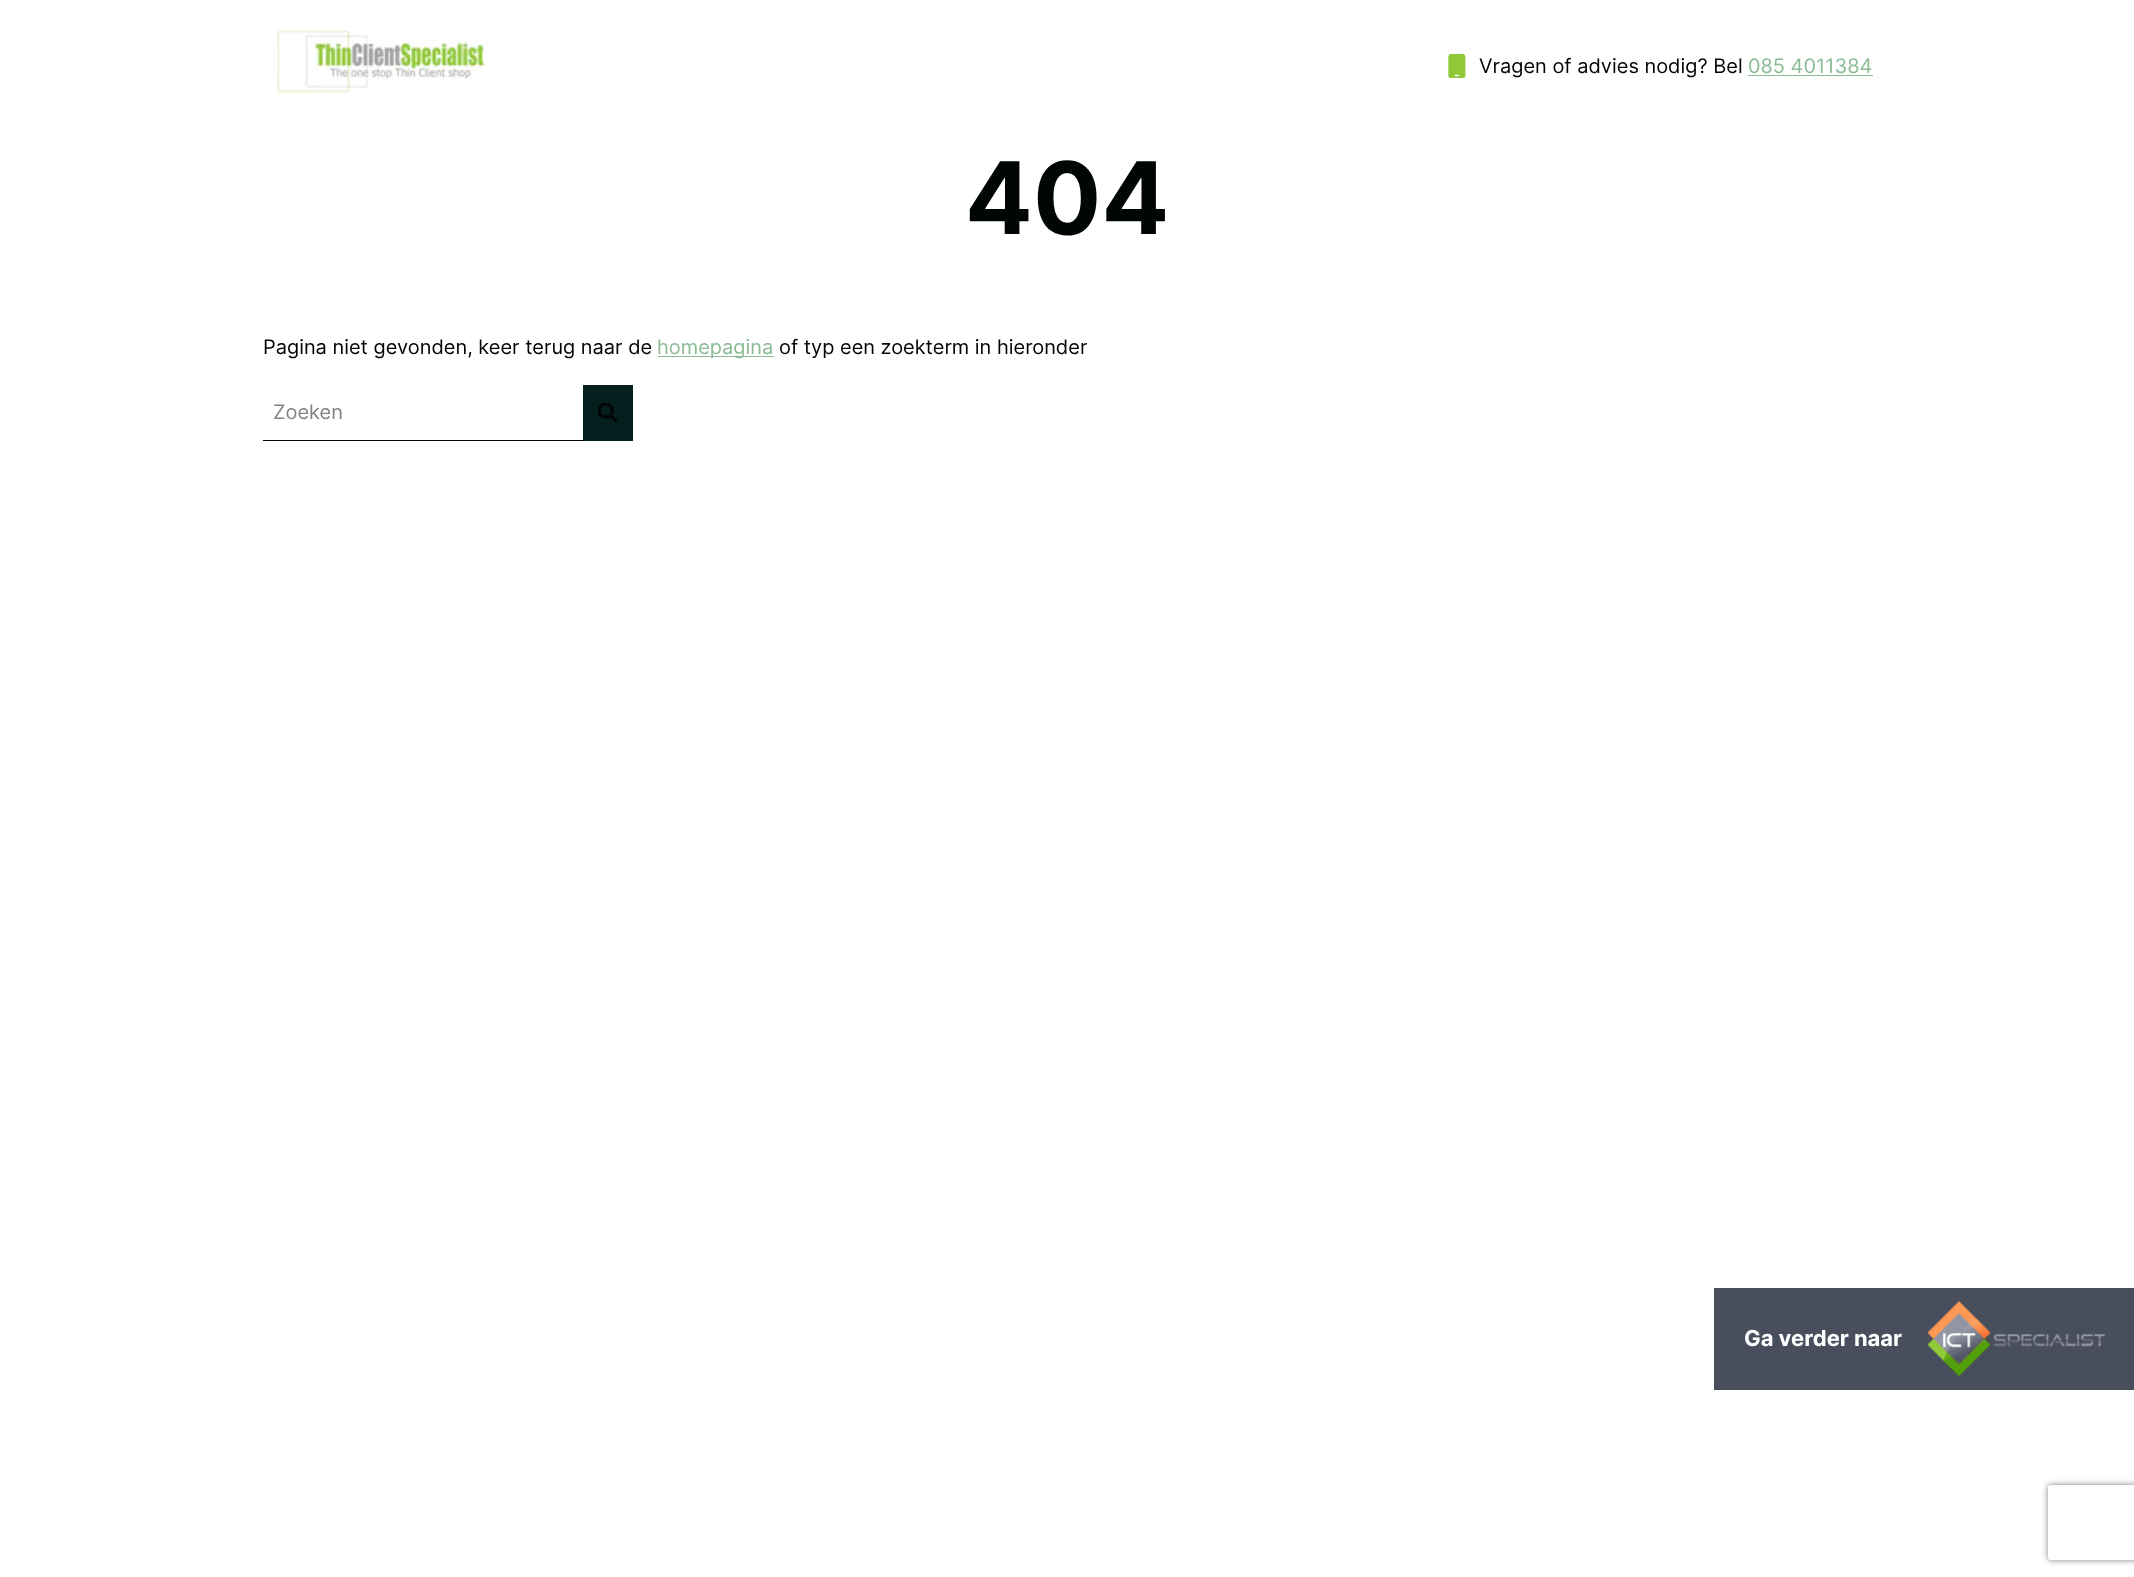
<!DOCTYPE html>
<meta charset="utf-8">
<style>body { margin: 0 } canvas { display: block }</style>
<canvas id="canvas" width="2134" height="1577"></canvas>
<img id="img1" src="img_01.png" hidden>
<img id="img2" src="img_02.png" hidden>
<img id="img3" src="img_03.png" hidden>
<img id="img4" src="img_04.png" hidden>
<script>
window.onload = function () {
	const canvas = document.getElementById("canvas");
	const ctx = canvas.getContext("2d");
	ctx.miterLimit = 4;
	ctx.fontKerning = "normal";
	function txt(s, x, y) {
		ctx.fillText(s, x, y);
	}
	function fill(x, y, w, h) {
		ctx.fillRect(x, y, w, h);
	}
	function img(id, x, y, w, h) {
		ctx.drawImage(document.getElementById(id), x, y, w, h);
	}

	ctx.fillStyle = "#FFFFFF";
	fill(0, 0, 2134, 1577);
	img("img1", 274, 29, 216, 71);
	img("img2", 1448, 54, 18, 24);
	ctx.fillStyle = "#8BBB94";
	fill(1748, 75, 125, 1);
	fill(658, 356, 116, 1);
	ctx.fillStyle = "#010506";
	fill(263, 440, 320, 1);
	ctx.fillStyle = "#041F1E";
	fill(583, 385, 50, 56);
	img("img3", 598, 403, 20, 20);
	ctx.fillStyle = "#484E5C";
	fill(1714, 1288, 420, 102);
	img("img4", 1927, 1301, 179, 76);
	ctx.save();
	ctx.beginPath();
	ctx.moveTo(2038, 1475);
	ctx.lineTo(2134, 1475);
	ctx.lineTo(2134, 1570);
	ctx.lineTo(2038, 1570);
	ctx.closePath();
	ctx.moveTo(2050.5, 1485);
	ctx.lineTo(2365.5, 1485);
	ctx.bezierCurveTo(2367, 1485, 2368, 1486, 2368, 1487.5);
	ctx.lineTo(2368, 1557.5);
	ctx.bezierCurveTo(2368, 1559, 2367, 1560, 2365.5, 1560);
	ctx.lineTo(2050.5, 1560);
	ctx.bezierCurveTo(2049, 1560, 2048, 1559, 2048, 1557.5);
	ctx.lineTo(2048, 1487.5);
	ctx.bezierCurveTo(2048, 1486, 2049, 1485, 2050.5, 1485);
	ctx.closePath();
	ctx.clip("evenodd");
	ctx.fillStyle = "#808080";
	ctx.filter = "blur(3px)";
	ctx.beginPath();
	ctx.roundRect(2048, 1485, 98, 75, 2.5);
	ctx.fill();
	ctx.filter = "none";
	ctx.restore();
	ctx.font = "20px Inter";
	ctx.fillStyle = "#010506";
	txt("Vragen of advies nodig? Bel", 1479, 73);
	ctx.fillStyle = "#8BBB94";
	txt("085 4011384", 1748, 73);
	ctx.font = "bold 100px Inter";
	ctx.fillStyle = "#010506";
	txt("404", 965, 234);
	ctx.font = "20px Inter";
	txt("Pagina niet gevonden, keer terug naar de", 263, 354);
	ctx.fillStyle = "#8BBB94";
	txt("homepagina", 657, 354);
	ctx.fillStyle = "#010506";
	txt("of typ een zoekterm in hieronder", 779, 354);
	ctx.fillStyle = "#808283";
	txt("Zoeken", 273, 419);
	ctx.font = "bold 22px Inter";
	ctx.fillStyle = "#FFFFFF";
	txt("Ga verder naar", 1744, 1346);
};
</script>
